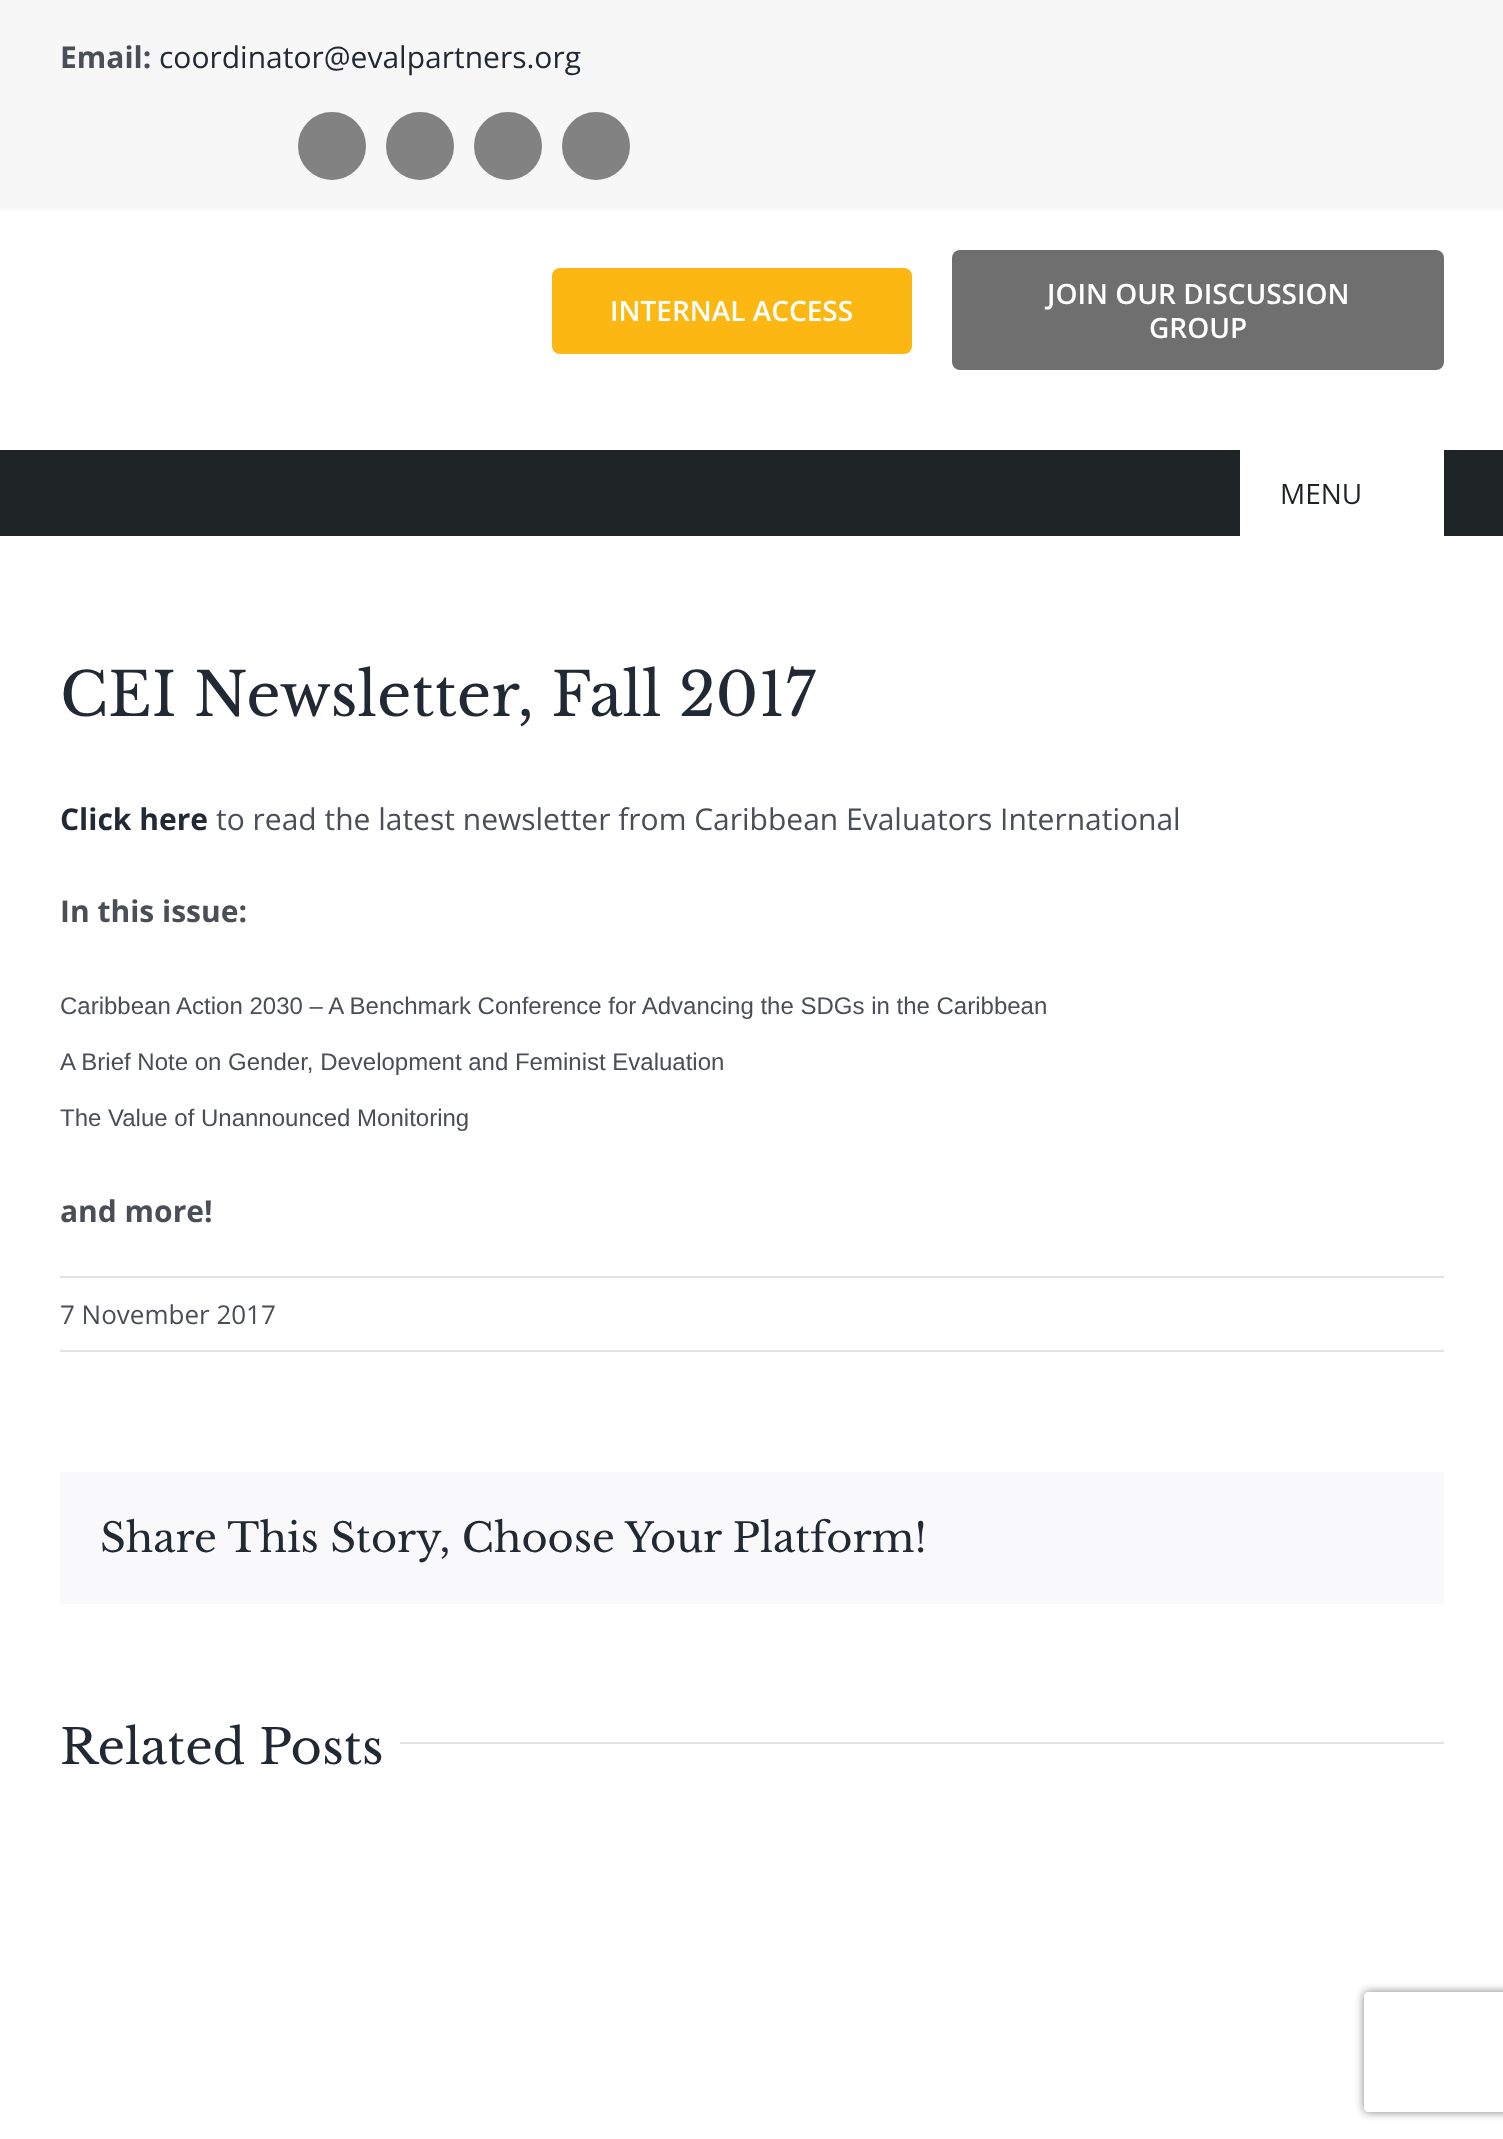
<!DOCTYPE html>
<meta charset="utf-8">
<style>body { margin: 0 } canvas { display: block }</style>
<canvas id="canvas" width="1503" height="2139"></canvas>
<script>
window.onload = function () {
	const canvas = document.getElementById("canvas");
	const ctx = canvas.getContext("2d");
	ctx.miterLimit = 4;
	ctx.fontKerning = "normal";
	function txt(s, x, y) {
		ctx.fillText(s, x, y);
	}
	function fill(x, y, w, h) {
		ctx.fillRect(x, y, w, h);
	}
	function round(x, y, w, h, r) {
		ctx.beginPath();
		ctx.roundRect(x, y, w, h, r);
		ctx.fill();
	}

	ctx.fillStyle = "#FFFFFF";
	fill(0, 0, 1503, 2139);
	ctx.fillStyle = "#F7F7F7";
	fill(0, 0, 1503, 210);
	ctx.fillStyle = "#828282";
	ctx.beginPath();
	ctx.arc(332, 146, 33, 0, Math.PI * 2);
	ctx.fill();
	ctx.strokeStyle = "#828282";
	ctx.lineWidth = 2;
	ctx.stroke();
	ctx.beginPath();
	ctx.arc(420, 146, 33, 0, Math.PI * 2);
	ctx.fill();
	ctx.stroke();
	ctx.beginPath();
	ctx.arc(508, 146, 33, 0, Math.PI * 2);
	ctx.fill();
	ctx.stroke();
	ctx.beginPath();
	ctx.arc(596, 146, 33, 0, Math.PI * 2);
	ctx.fill();
	ctx.stroke();
	ctx.fillStyle = "#FDB712";
	round(552, 268, 360, 86, 8);
	ctx.fillStyle = "#6F6F6F";
	round(952, 250, 492, 120, 8);
	ctx.fillStyle = "#1E2426";
	fill(0, 450, 1503, 86);
	ctx.fillStyle = "#FFFFFF";
	fill(1240, 450, 204, 86);
	ctx.fillStyle = "#E2E2E2";
	fill(60, 1276, 1384, 2);
	fill(60, 1350, 1384, 2);
	ctx.fillStyle = "#F9F9FB";
	fill(60, 1472, 1384, 132);
	ctx.fillStyle = "#E2E2E2";
	fill(400, 1742, 1044, 2);
	ctx.save();
	ctx.beginPath();
	ctx.moveTo(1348, 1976);
	ctx.lineTo(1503, 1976);
	ctx.lineTo(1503, 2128);
	ctx.lineTo(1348, 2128);
	ctx.closePath();
	ctx.moveTo(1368, 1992);
	ctx.lineTo(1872, 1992);
	ctx.bezierCurveTo(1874, 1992, 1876, 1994, 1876, 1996);
	ctx.lineTo(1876, 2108);
	ctx.bezierCurveTo(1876, 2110, 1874, 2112, 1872, 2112);
	ctx.lineTo(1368, 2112);
	ctx.bezierCurveTo(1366, 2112, 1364, 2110, 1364, 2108);
	ctx.lineTo(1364, 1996);
	ctx.bezierCurveTo(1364, 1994, 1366, 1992, 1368, 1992);
	ctx.closePath();
	ctx.clip("evenodd");
	ctx.fillStyle = "#808080";
	ctx.filter = "blur(5px)";
	ctx.beginPath();
	ctx.roundRect(1364, 1992, 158, 120, 4);
	ctx.fill();
	ctx.filter = "none";
	ctx.restore();
	ctx.font = "bold 30px Open Sans";
	ctx.fillStyle = "#4A4E57";
	txt("Email:", 60, 68);
	ctx.font = "30px Open Sans";
	ctx.fillStyle = "#212934";
	txt("coordinator@evalpartners.org", 159, 68);
	ctx.font = "600 28px Open Sans";
	ctx.fillStyle = "#FFFFFF";
	txt("INTERNAL ACCESS", 610, 321);
	txt("JOIN OUR DISCUSSION", 1047, 304);
	txt("GROUP", 1149, 338);
	ctx.font = "28px Open Sans";
	ctx.fillStyle = "#1E2426";
	txt("MENU", 1280, 504);
	ctx.font = "60px Libre Baskerville";
	ctx.fillStyle = "#212934";
	txt("CEI Newsletter, Fall 2017", 60, 716);
	ctx.font = "bold 30px Open Sans";
	txt("Click here", 60, 830);
	ctx.font = "30px Open Sans";
	ctx.fillStyle = "#4A4E57";
	txt("to read the latest newsletter from Caribbean Evaluators International", 216, 830);
	ctx.font = "bold 30px Open Sans";
	txt("In this issue:", 60, 922);
	ctx.font = "24px Liberation Sans";
	txt("Caribbean Action 2030 – A Benchmark Conference for Advancing the SDGs in the Caribbean", 60, 1014);
	txt("A Brief Note on Gender, Development and Feminist Evaluation", 60, 1070);
	txt("The Value of Unannounced Monitoring", 60, 1126);
	ctx.font = "bold 30px Open Sans";
	txt("and more!", 60, 1222);
	ctx.font = "26px Open Sans";
	txt("7 November 2017", 60, 1324);
	ctx.font = "40px Libre Baskerville";
	ctx.fillStyle = "#212934";
	txt("Share This Story, Choose Your Platform!", 100, 1552);
	ctx.font = "48px Libre Baskerville";
	txt("Related Posts", 60, 1764);
};
</script>
